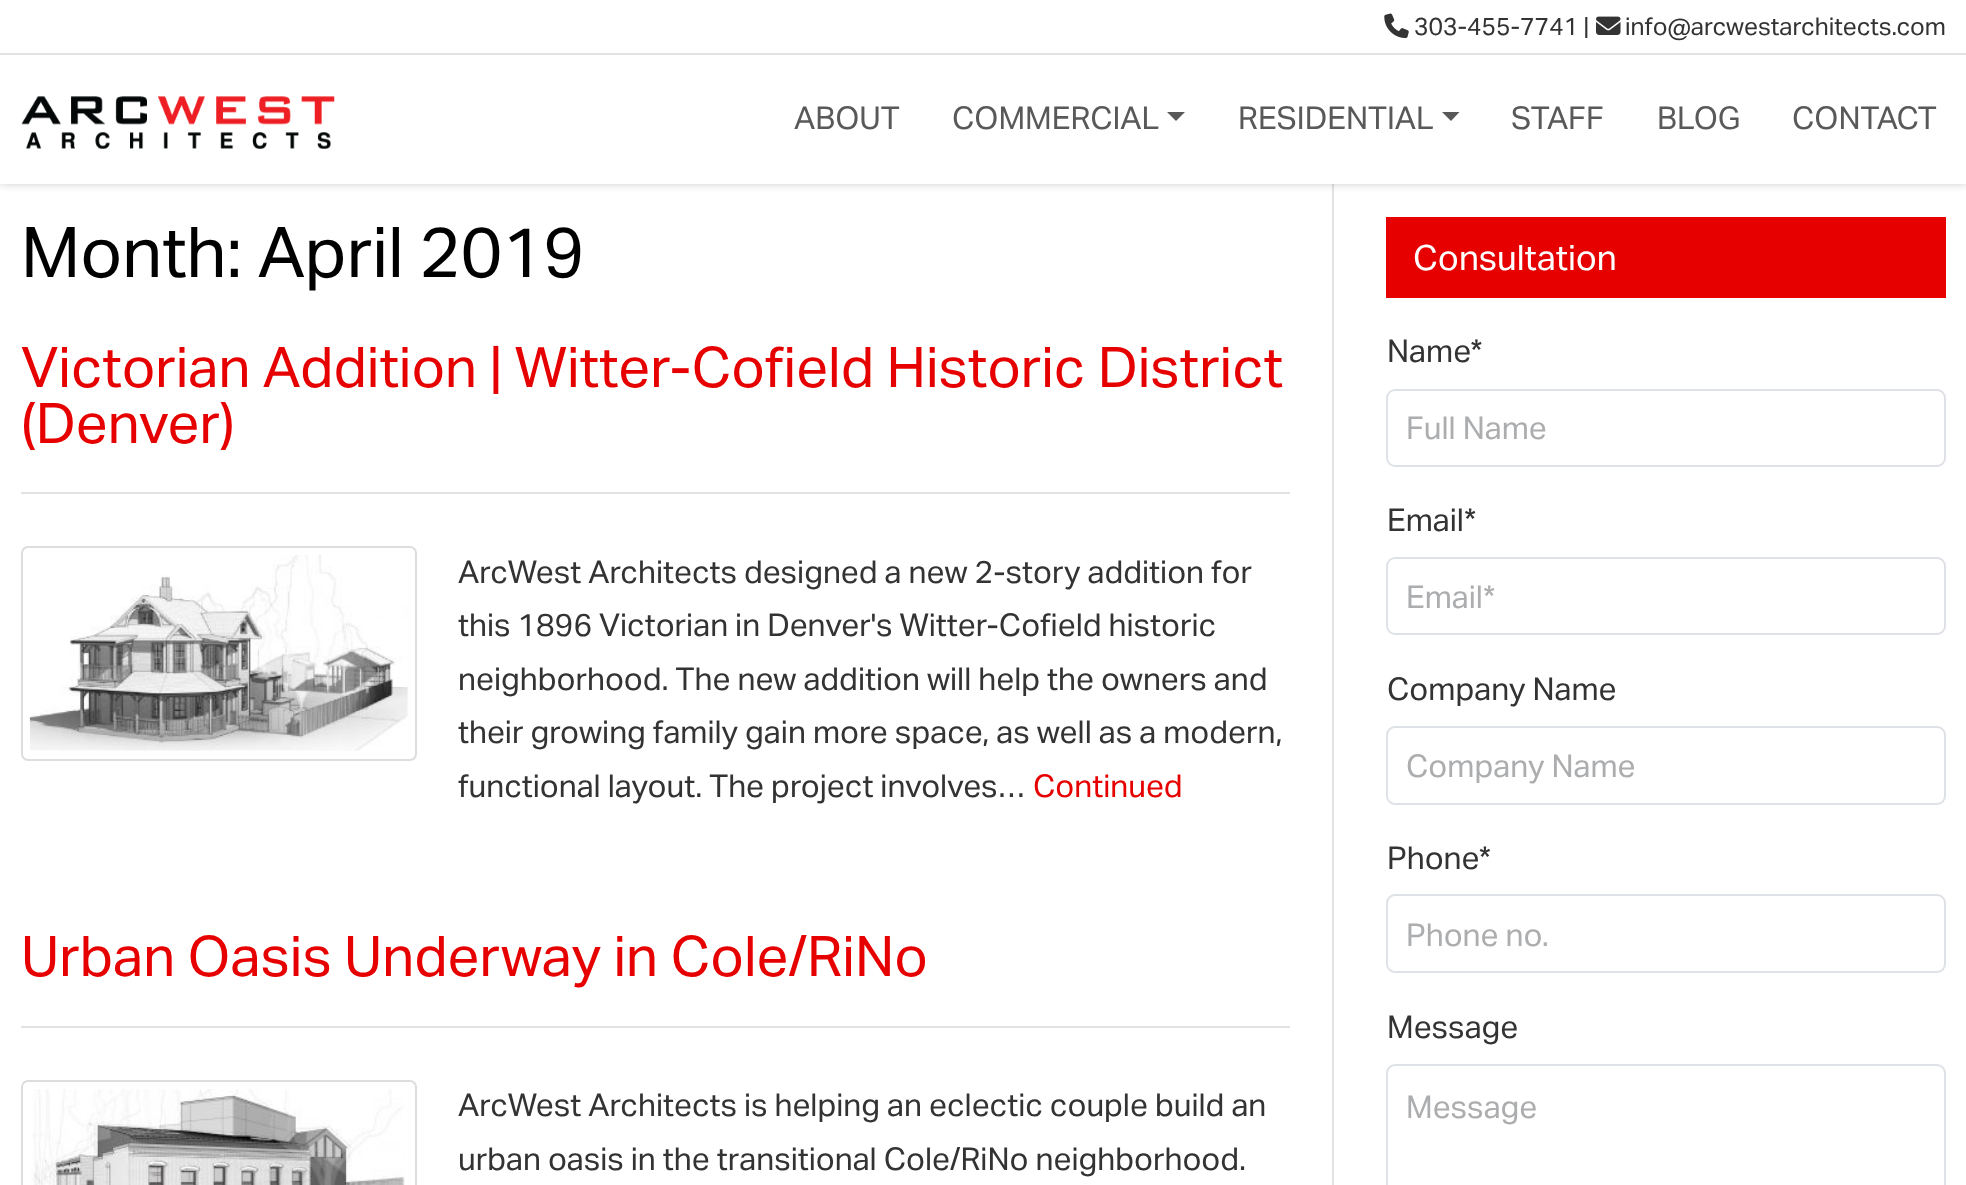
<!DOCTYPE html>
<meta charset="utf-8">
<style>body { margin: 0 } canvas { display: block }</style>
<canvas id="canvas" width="1966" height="1185"></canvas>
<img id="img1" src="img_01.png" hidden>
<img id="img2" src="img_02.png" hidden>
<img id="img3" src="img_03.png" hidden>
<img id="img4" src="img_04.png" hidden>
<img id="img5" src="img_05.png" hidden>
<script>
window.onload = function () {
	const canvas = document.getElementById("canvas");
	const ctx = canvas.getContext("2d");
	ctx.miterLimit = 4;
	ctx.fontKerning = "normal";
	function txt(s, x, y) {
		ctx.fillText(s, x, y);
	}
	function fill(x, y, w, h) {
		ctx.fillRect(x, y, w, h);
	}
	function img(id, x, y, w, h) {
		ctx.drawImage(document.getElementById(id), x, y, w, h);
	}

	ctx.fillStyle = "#FFFFFF";
	fill(0, 0, 1966, 1185);
	ctx.fillStyle = "#E3E3E3";
	fill(1332, 175, 2, 1010);
	ctx.save();
	ctx.beginPath();
	ctx.moveTo(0, 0);
	ctx.lineTo(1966, 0);
	ctx.lineTo(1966, 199);
	ctx.lineTo(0, 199);
	ctx.closePath();
	ctx.moveTo(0, 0);
	ctx.lineTo(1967, 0);
	ctx.lineTo(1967, 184);
	ctx.lineTo(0, 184);
	ctx.closePath();
	ctx.clip("evenodd");
	ctx.fillStyle = "rgba(0, 0, 0, 0.2)";
	ctx.filter = "blur(4.5px)";
	ctx.beginPath();
	ctx.rect(0, 0, 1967, 184);
	ctx.fill();
	ctx.filter = "none";
	ctx.restore();
	ctx.fillStyle = "rgba(255, 255, 255, 0.98)";
	fill(0, 175, 1966, 9);
	ctx.fillStyle = "#E3E3E3";
	fill(0, 53, 1966, 2);
	img("img1", 1384, 13, 25, 26);
	img("img2", 1596, 16, 25, 19);
	img("img3", 21, 96, 314, 53);
	ctx.fillStyle = "#595959";
	ctx.beginPath();
	ctx.moveTo(1167, 112);
	ctx.lineTo(1185, 112);
	ctx.lineTo(1176, 121);
	ctx.closePath();
	ctx.fill();
	ctx.beginPath();
	ctx.moveTo(1442, 112);
	ctx.lineTo(1459.5, 112);
	ctx.lineTo(1451, 121);
	ctx.closePath();
	ctx.fill();
	ctx.fillStyle = "#E3E3E3";
	fill(21, 492, 1269, 2);
	ctx.beginPath();
	ctx.roundRect(22, 547, 394, 213, 6);
	ctx.strokeStyle = "#DDDDDD";
	ctx.lineWidth = 2;
	ctx.stroke();
	img("img4", 29, 555, 379, 196);
	fill(21, 1026, 1269, 2);
	ctx.beginPath();
	ctx.roundRect(22, 1081, 394, 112, 6);
	ctx.stroke();
	img("img5", 31, 1089, 374, 96);
	ctx.fillStyle = "#E60000";
	fill(1386, 217, 560, 81);
	ctx.beginPath();
	ctx.roundRect(1387, 390, 558, 76, 8);
	ctx.strokeStyle = "#DEE2E6";
	ctx.stroke();
	ctx.beginPath();
	ctx.roundRect(1387, 558, 558, 76, 8);
	ctx.stroke();
	ctx.beginPath();
	ctx.roundRect(1387, 727, 558, 77, 8);
	ctx.stroke();
	ctx.beginPath();
	ctx.roundRect(1387, 895, 558, 77, 8);
	ctx.stroke();
	ctx.beginPath();
	ctx.roundRect(1387, 1065, 558, 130, 8);
	ctx.stroke();
	ctx.font = "24.5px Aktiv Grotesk";
	ctx.fillStyle = "#333333";
	txt("303-455-7741 |", 1414, 35);
	txt("info@arcwestarchitects.com", 1625, 35);
	ctx.font = "31.5px Aktiv Grotesk";
	ctx.fillStyle = "#595959";
	txt("ABOUT", 794, 129);
	txt("COMMERCIAL", 952, 129);
	txt("RESIDENTIAL", 1238, 129);
	txt("STAFF", 1511, 129);
	txt("BLOG", 1657, 129);
	txt("CONTACT", 1792, 129);
	ctx.font = "70px Aktiv Grotesk";
	ctx.fillStyle = "#000000";
	txt("Month: April 2019", 21, 277);
	ctx.font = "56px Aktiv Grotesk";
	ctx.fillStyle = "#E60000";
	txt("Victorian Addition | Witter-Cofield Historic District", 21, 387);
	txt("(Denver)", 21, 443);
	ctx.font = "31.5px Aktiv Grotesk";
	ctx.fillStyle = "#333333";
	txt("ArcWest Architects designed a new 2-story addition for", 458, 583);
	txt("this 1896 Victorian in Denver's Witter-Cofield historic", 458, 636);
	txt("neighborhood. The new addition will help the owners and", 458, 690);
	txt("their growing family gain more space, as well as a modern,", 458, 743);
	txt("functional layout. The project involves…", 458, 797);
	ctx.fillStyle = "#E60000";
	txt("Continued", 1033, 797);
	ctx.font = "56px Aktiv Grotesk";
	txt("Urban Oasis Underway in Cole/RiNo", 21, 976);
	ctx.font = "31.5px Aktiv Grotesk";
	ctx.fillStyle = "#333333";
	txt("ArcWest Architects is helping an eclectic couple build an", 458, 1116);
	txt("urban oasis in the transitional Cole/RiNo neighborhood.", 458, 1170);
	ctx.font = "35px Aktiv Grotesk";
	ctx.fillStyle = "#FFFFFF";
	txt("Consultation", 1413, 270);
	ctx.font = "31.5px Aktiv Grotesk";
	ctx.fillStyle = "#333333";
	txt("Name*", 1387, 362);
	ctx.fillStyle = "#ACADAF";
	txt("Full Name", 1406, 439);
	ctx.fillStyle = "#333333";
	txt("Email*", 1387, 531);
	ctx.fillStyle = "#ACADAF";
	txt("Email*", 1406, 608);
	ctx.fillStyle = "#333333";
	txt("Company Name", 1387, 700);
	ctx.fillStyle = "#ACADAF";
	txt("Company Name", 1406, 777);
	ctx.fillStyle = "#333333";
	txt("Phone*", 1387, 869);
	ctx.fillStyle = "#ACADAF";
	txt("Phone no.", 1406, 946);
	ctx.fillStyle = "#333333";
	txt("Message", 1387, 1038);
	ctx.fillStyle = "#ACADAF";
	txt("Message", 1406, 1118);
};
</script>
